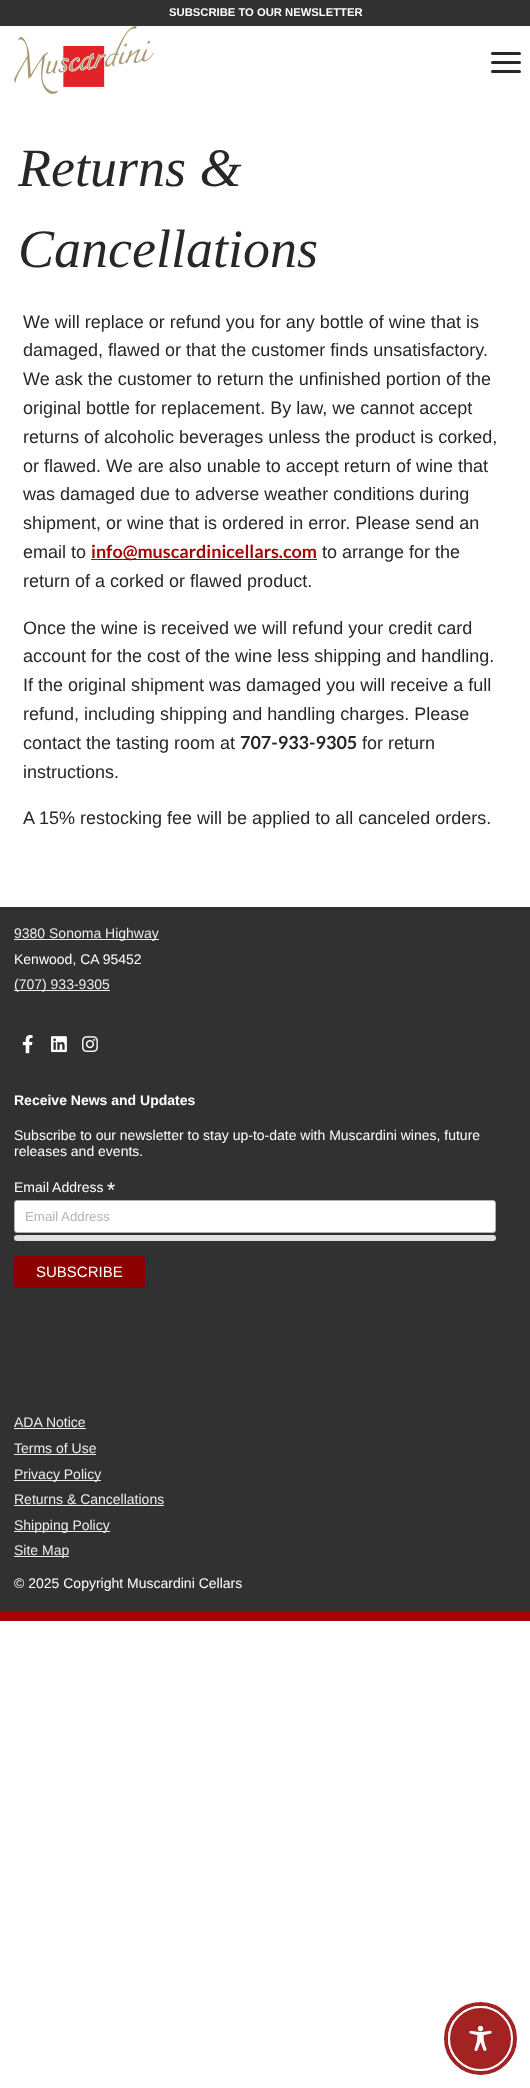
<!DOCTYPE html>
<meta charset="utf-8">
<style>body { margin: 0 } canvas { display: block }</style>
<canvas id="canvas" width="530" height="2088"></canvas>
<img id="img1" src="img_01.png" hidden>
<img id="img2" src="img_02.png" hidden>
<img id="img3" src="img_03.png" hidden>
<img id="img4" src="img_04.png" hidden>
<img id="img5" src="img_06.png" hidden>
<img id="img6" src="img_05.png" hidden>
<script>
window.onload = function () {
	const canvas = document.getElementById("canvas");
	const ctx = canvas.getContext("2d");
	ctx.miterLimit = 4;
	ctx.fontKerning = "normal";
	function txt(s, x, y) {
		ctx.fillText(s, x, y);
	}
	function fill(x, y, w, h) {
		ctx.fillRect(x, y, w, h);
	}
	function round(x, y, w, h, r) {
		ctx.beginPath();
		ctx.roundRect(x, y, w, h, r);
		ctx.fill();
	}
	function img(id, x, y, w, h) {
		ctx.drawImage(document.getElementById(id), x, y, w, h);
	}

	ctx.fillStyle = "#FFFFFF";
	fill(0, 0, 530, 2088);
	ctx.fillStyle = "#313131";
	fill(0, 0, 530, 26);
	img("img1", 14, 26, 140, 68);
	ctx.fillStyle = "#282728";
	round(491, 61, 30, 3, 1.5);
	round(491, 52, 30, 3, 1.5);
	round(491, 70, 30, 3, 1.5);
	ctx.fillStyle = "#A50303";
	fill(91, 559, 226, 1);
	ctx.fillStyle = "#313131";
	fill(0, 907, 530, 704);
	ctx.fillStyle = "#A50303";
	fill(0, 1611, 530, 10);
	ctx.fillStyle = "#EDEDED";
	fill(14, 939, 145, 1);
	fill(14, 990, 96, 1);
	img("img2", 22, 1035, 11, 19);
	img("img3", 51, 1036, 16, 17);
	img("img4", 82, 1036, 16, 16);
	ctx.fillStyle = "#FFFFFF";
	ctx.beginPath();
	ctx.roundRect(14.5, 1200.5, 481, 32, 2.5);
	ctx.fill();
	ctx.strokeStyle = "#ABB0B2";
	ctx.stroke();
	ctx.fillStyle = "#E0E0E0";
	round(14, 1235, 482, 6, 3);
	ctx.fillStyle = "#8B0000";
	round(14, 1256, 131, 32, 4);
	ctx.fillStyle = "#EDEDED";
	fill(14, 1428, 72, 1);
	fill(14, 1454, 82, 1);
	fill(14, 1480, 87, 1);
	fill(14, 1505, 150, 1);
	fill(14, 1531, 96, 1);
	fill(14, 1556, 55, 1);
	img("img5", 453, 2011, 60, 60);
	ctx.beginPath();
	ctx.arc(480.5, 2038.5, 34.5, 0, Math.PI * 2);
	ctx.strokeStyle = "#A32222";
	ctx.lineWidth = 4;
	ctx.stroke();
	ctx.fillStyle = "#A32222";
	ctx.beginPath();
	ctx.arc(480.5, 2038.5, 31.5, 0, Math.PI * 2);
	ctx.fill();
	ctx.strokeStyle = "#FFFFFF";
	ctx.lineWidth = 2;
	ctx.stroke();
	img("img6", 469, 2025, 23, 26);
	ctx.font = "bold 11.25px Liberation Sans";
	ctx.fillStyle = "#FFFFFF";
	txt("SUBSCRIBE TO OUR NEWSLETTER", 169, 16);
	ctx.font = "italic 54px Liberation Serif";
	ctx.fillStyle = "#282728";
	txt("Returns &", 18, 186);
	txt("Cancellations", 18, 267);
	ctx.font = "18px Liberation Sans";
	txt("We will replace or refund you for any bottle of wine that is", 23, 328);
	txt("damaged, flawed or that the customer finds unsatisfactory.", 23, 356);
	txt("We ask the customer to return the unfinished portion of the", 23, 385);
	txt("original bottle for replacement. By law, we cannot accept", 23, 414);
	txt("returns of alcoholic beverages unless the product is corked,", 23, 443);
	txt("or flawed. We are also unable to accept return of wine that", 23, 472);
	txt("was damaged due to adverse weather conditions during", 23, 500);
	txt("shipment, or wine that is ordered in error. Please send an", 23, 529);
	txt("email to", 23, 558);
	ctx.font = "bold 18px Lato";
	ctx.fillStyle = "#A50303";
	txt("info@muscardinicellars.com", 91, 558);
	ctx.font = "18px Liberation Sans";
	ctx.fillStyle = "#282728";
	txt("to arrange for the", 322, 558);
	txt("return of a corked or flawed product.", 23, 587);
	txt("Once the wine is received we will refund your credit card", 23, 634);
	txt("account for the cost of the wine less shipping and handling.", 23, 662);
	txt("If the original shipment was damaged you will receive a full", 23, 691);
	txt("refund, including shipping and handling charges. Please", 23, 720);
	txt("contact the tasting room at", 23, 749);
	ctx.font = "bold 18px Lato";
	txt("707-933-9305", 240, 749);
	ctx.font = "18px Liberation Sans";
	txt("for return", 362, 749);
	txt("instructions.", 23, 778);
	txt("A 15% restocking fee will be applied to all canceled orders.", 23, 824);
	ctx.font = "14px Liberation Sans";
	ctx.fillStyle = "#EDEDED";
	txt("9380 Sonoma Highway", 14, 938);
	ctx.fillStyle = "#FFFFFF";
	txt("Kenwood, CA 95452", 14, 964);
	ctx.fillStyle = "#EDEDED";
	txt("(707) 933-9305", 14, 989);
	ctx.font = "bold 14px Liberation Sans";
	ctx.fillStyle = "#FFFFFF";
	txt("Receive News and Updates", 14, 1105);
	ctx.font = "14px Liberation Sans";
	txt("Subscribe to our newsletter to stay up-to-date with Muscardini wines, future", 14, 1140);
	txt("releases and events.", 14, 1156);
	txt("Email Address", 14, 1192);
	ctx.font = "21px Liberation Sans";
	txt("*", 107, 1197);
	ctx.font = "13.25px Liberation Sans";
	ctx.fillStyle = "#B2B2B8";
	txt("Email Address", 25, 1221);
	ctx.font = "15px Liberation Sans";
	ctx.fillStyle = "#FFFFFF";
	txt("SUBSCRIBE", 36, 1277);
	ctx.font = "14px Liberation Sans";
	ctx.fillStyle = "#EDEDED";
	txt("ADA Notice", 14, 1427);
	txt("Terms of Use", 14, 1453);
	txt("Privacy Policy", 14, 1479);
	txt("Returns & Cancellations", 14, 1504);
	txt("Shipping Policy", 14, 1530);
	txt("Site Map", 14, 1555);
	ctx.fillStyle = "#FFFFFF";
	txt("© 2025 Copyright Muscardini Cellars", 14, 1588);
};
</script>
